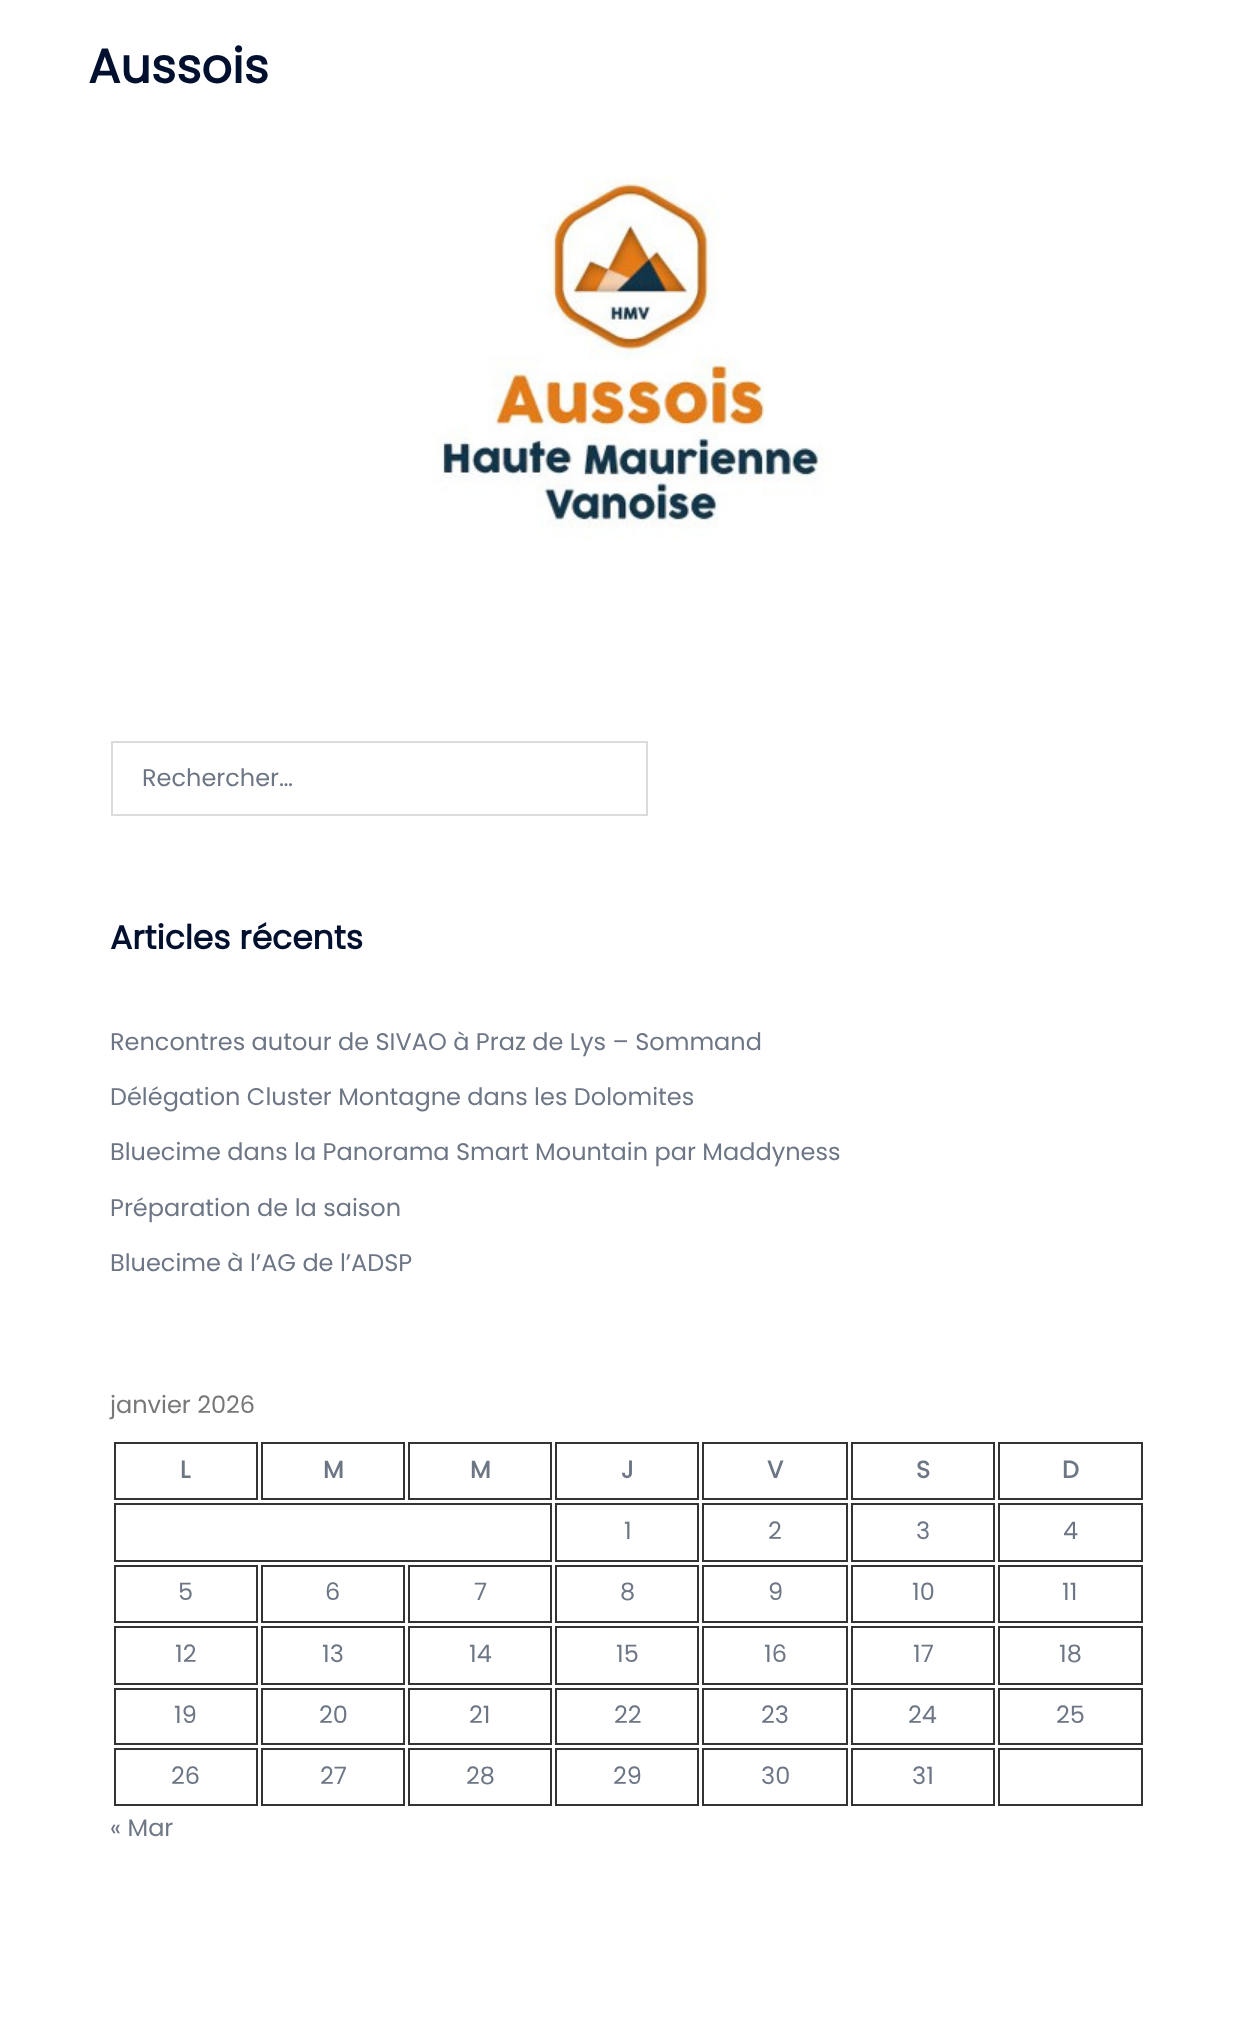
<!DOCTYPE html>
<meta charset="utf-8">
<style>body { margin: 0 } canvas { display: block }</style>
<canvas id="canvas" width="1255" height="2042"></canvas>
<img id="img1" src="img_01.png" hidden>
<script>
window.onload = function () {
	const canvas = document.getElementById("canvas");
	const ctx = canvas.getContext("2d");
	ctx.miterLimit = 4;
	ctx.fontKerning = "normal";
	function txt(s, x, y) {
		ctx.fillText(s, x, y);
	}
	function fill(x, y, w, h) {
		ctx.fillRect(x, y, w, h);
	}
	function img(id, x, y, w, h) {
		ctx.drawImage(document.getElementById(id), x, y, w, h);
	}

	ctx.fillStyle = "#FFFFFF";
	fill(0, 0, 1255, 2042);
	img("img1", 432, 176, 397, 364);
	ctx.strokeStyle = "#DBDBDB";
	ctx.lineWidth = 2;
	ctx.strokeRect(112, 742, 535, 73);
	ctx.strokeStyle = "#333333";
	ctx.strokeRect(115, 1443, 142, 56);
	ctx.strokeRect(262, 1443, 142, 56);
	ctx.strokeRect(409, 1443, 142, 56);
	ctx.strokeRect(556, 1443, 142, 56);
	ctx.strokeRect(703, 1443, 144, 56);
	ctx.strokeRect(852, 1443, 142, 56);
	ctx.strokeRect(999, 1443, 143, 56);
	ctx.strokeRect(115, 1504, 436, 57);
	ctx.strokeRect(556, 1504, 142, 57);
	ctx.strokeRect(703, 1504, 144, 57);
	ctx.strokeRect(852, 1504, 142, 57);
	ctx.strokeRect(999, 1504, 143, 57);
	ctx.strokeRect(115, 1566, 142, 56);
	ctx.strokeRect(262, 1566, 142, 56);
	ctx.strokeRect(409, 1566, 142, 56);
	ctx.strokeRect(556, 1566, 142, 56);
	ctx.strokeRect(703, 1566, 144, 56);
	ctx.strokeRect(852, 1566, 142, 56);
	ctx.strokeRect(999, 1566, 143, 56);
	ctx.strokeRect(115, 1627, 142, 57);
	ctx.strokeRect(262, 1627, 142, 57);
	ctx.strokeRect(409, 1627, 142, 57);
	ctx.strokeRect(556, 1627, 142, 57);
	ctx.strokeRect(703, 1627, 144, 57);
	ctx.strokeRect(852, 1627, 142, 57);
	ctx.strokeRect(999, 1627, 143, 57);
	ctx.strokeRect(115, 1689, 142, 55);
	ctx.strokeRect(262, 1689, 142, 55);
	ctx.strokeRect(409, 1689, 142, 55);
	ctx.strokeRect(556, 1689, 142, 55);
	ctx.strokeRect(703, 1689, 144, 55);
	ctx.strokeRect(852, 1689, 142, 55);
	ctx.strokeRect(999, 1689, 143, 55);
	ctx.strokeRect(115, 1749, 142, 56);
	ctx.strokeRect(262, 1749, 142, 56);
	ctx.strokeRect(409, 1749, 142, 56);
	ctx.strokeRect(556, 1749, 142, 56);
	ctx.strokeRect(703, 1749, 144, 56);
	ctx.strokeRect(852, 1749, 142, 56);
	ctx.strokeRect(999, 1749, 143, 56);
	ctx.font = "bold 48px Poppins";
	ctx.fillStyle = "#00102E";
	txt("Aussois", 88, 83);
	ctx.font = "24px Poppins";
	ctx.fillStyle = "#6D7685";
	txt("Rechercher…", 142, 786);
	ctx.font = "bold 33px Poppins";
	ctx.fillStyle = "#00102E";
	txt("Articles récents", 110, 949);
	ctx.font = "24px Poppins";
	ctx.fillStyle = "#6D7685";
	txt("Rencontres autour de SIVAO à Praz de Lys – Sommand", 110, 1050);
	txt("Délégation Cluster Montagne dans les Dolomites", 110, 1105);
	txt("Bluecime dans la Panorama Smart Mountain par Maddyness", 110, 1160);
	txt("Préparation de la saison", 110, 1216);
	txt("Bluecime à l’AG de l’ADSP", 110, 1271);
	ctx.fillStyle = "#777777";
	txt("janvier 2026", 110, 1413);
	ctx.font = "bold 24px Poppins";
	ctx.fillStyle = "#6D7685";
	txt("L", 180, 1478);
	txt("M", 323, 1478);
	txt("M", 470, 1478);
	txt("J", 621, 1478);
	txt("V", 767, 1478);
	txt("S", 916, 1478);
	txt("D", 1062, 1478);
	ctx.font = "24px Poppins";
	txt("1", 624, 1539);
	txt("2", 768, 1539);
	txt("3", 916, 1539);
	txt("4", 1063, 1539);
	txt("5", 178, 1600);
	txt("6", 325, 1600);
	txt("7", 474, 1600);
	txt("8", 620, 1600);
	txt("9", 768, 1600);
	txt("10", 912, 1600);
	txt("11", 1062, 1600);
	txt("12", 175, 1662);
	txt("13", 322, 1662);
	txt("14", 469, 1662);
	txt("15", 616, 1662);
	txt("16", 764, 1662);
	txt("17", 913, 1662);
	txt("18", 1059, 1662);
	txt("19", 174, 1723);
	txt("20", 319, 1723);
	txt("21", 469, 1723);
	txt("22", 614, 1723);
	txt("23", 761, 1723);
	txt("24", 908, 1723);
	txt("25", 1056, 1723);
	txt("26", 171, 1784);
	txt("27", 320, 1784);
	txt("28", 466, 1784);
	txt("29", 613, 1784);
	txt("30", 761, 1784);
	txt("31", 912, 1784);
	txt("« Mar", 110, 1836);
};
</script>
